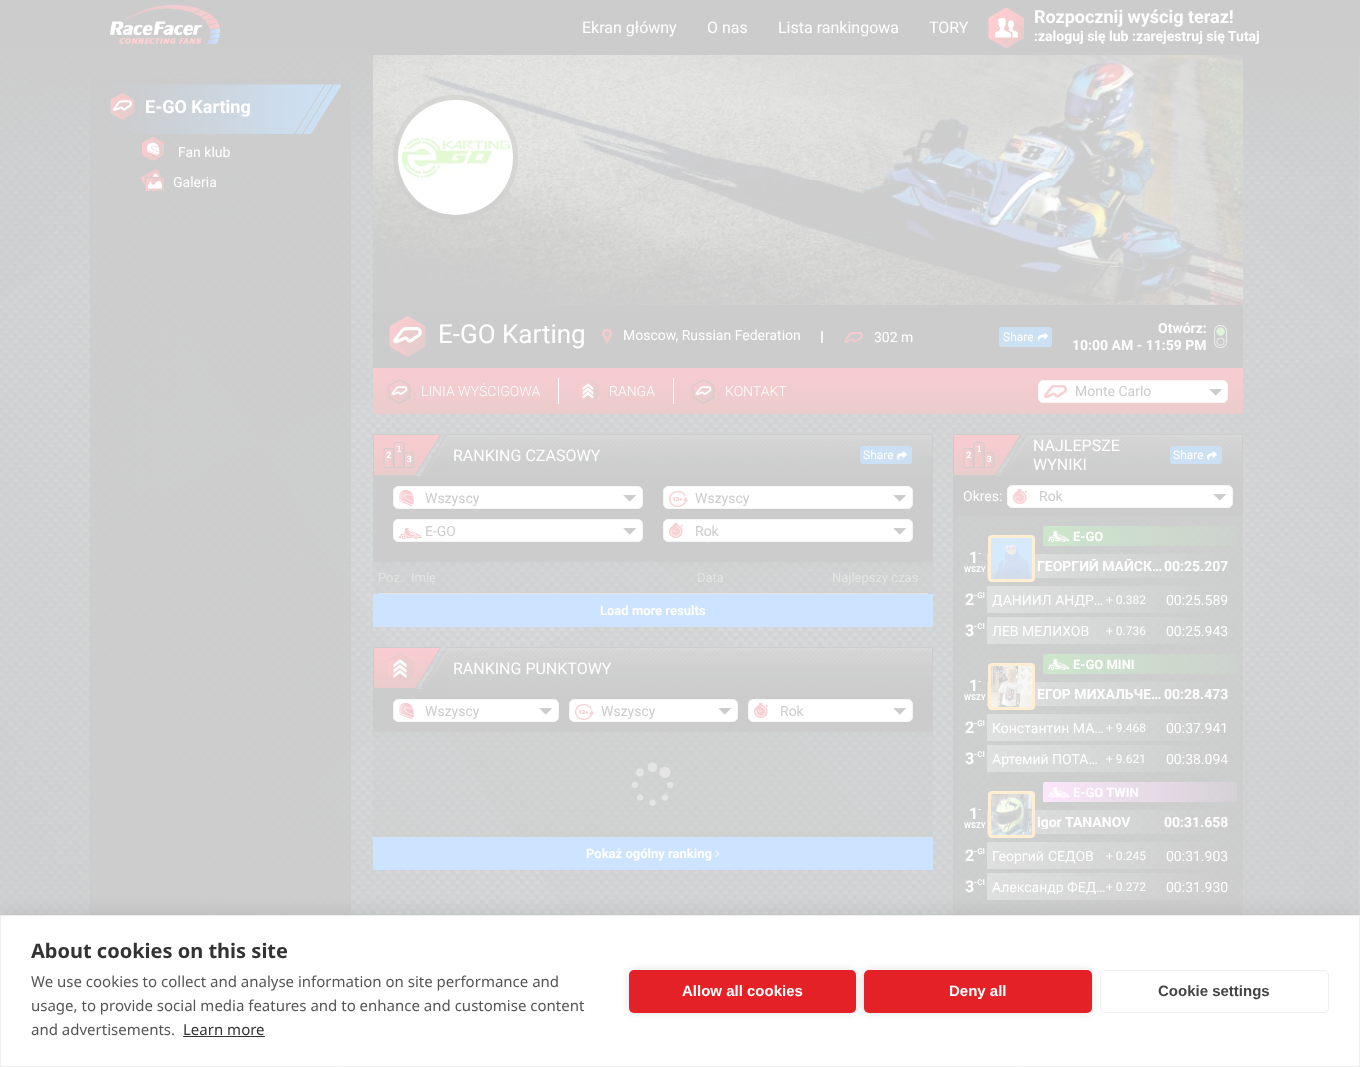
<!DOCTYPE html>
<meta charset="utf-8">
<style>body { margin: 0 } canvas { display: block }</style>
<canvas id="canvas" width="1360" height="1067"></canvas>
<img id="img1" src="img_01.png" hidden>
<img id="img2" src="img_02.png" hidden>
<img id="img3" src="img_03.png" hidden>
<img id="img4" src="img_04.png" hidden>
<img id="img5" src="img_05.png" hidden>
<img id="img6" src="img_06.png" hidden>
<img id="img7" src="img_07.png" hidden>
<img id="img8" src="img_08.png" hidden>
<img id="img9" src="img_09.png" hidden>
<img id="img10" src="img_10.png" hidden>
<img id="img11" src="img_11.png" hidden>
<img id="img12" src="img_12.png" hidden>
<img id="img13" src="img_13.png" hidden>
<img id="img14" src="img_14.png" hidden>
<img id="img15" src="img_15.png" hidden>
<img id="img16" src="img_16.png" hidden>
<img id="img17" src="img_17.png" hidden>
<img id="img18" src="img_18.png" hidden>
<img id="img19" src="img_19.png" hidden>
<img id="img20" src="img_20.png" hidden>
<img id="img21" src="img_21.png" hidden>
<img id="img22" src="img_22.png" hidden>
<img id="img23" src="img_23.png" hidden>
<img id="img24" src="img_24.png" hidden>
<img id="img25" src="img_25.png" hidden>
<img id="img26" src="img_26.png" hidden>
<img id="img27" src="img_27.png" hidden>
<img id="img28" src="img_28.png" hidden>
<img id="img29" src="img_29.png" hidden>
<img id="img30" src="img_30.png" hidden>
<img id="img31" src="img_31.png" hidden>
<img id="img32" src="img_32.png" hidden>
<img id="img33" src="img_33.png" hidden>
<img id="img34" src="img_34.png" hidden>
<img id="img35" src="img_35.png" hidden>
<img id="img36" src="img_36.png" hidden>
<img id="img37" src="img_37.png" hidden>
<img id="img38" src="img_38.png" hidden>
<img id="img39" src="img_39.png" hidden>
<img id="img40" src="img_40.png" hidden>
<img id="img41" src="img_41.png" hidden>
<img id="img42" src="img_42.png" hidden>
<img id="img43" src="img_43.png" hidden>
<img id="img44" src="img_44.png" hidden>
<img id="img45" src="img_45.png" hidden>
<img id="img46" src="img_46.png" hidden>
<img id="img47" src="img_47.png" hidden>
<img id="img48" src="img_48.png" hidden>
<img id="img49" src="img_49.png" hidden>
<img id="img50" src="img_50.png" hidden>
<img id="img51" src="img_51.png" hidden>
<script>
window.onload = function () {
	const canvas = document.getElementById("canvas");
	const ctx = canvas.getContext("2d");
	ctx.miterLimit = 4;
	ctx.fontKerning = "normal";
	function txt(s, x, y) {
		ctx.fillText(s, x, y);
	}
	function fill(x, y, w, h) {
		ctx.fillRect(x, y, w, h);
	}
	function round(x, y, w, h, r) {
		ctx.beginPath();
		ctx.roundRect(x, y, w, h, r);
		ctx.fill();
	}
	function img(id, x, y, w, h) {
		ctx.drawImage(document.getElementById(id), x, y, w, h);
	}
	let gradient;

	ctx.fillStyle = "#FFFFFF";
	fill(0, 0, 1360, 1067);
	ctx.fillStyle = "#CCCCCC";
	fill(0, 0, 1360, 55);
	img("img1", 110, 5, 110, 39);
	img("img2", 988, 8, 36, 40);
	img("img3", 0, 55, 1360, 860);
	ctx.fillStyle = "rgba(204, 204, 204, 0.8)";
	fill(90, 79, 261, 836);
	img("img4", 108, 84, 233, 50);
	img("img5", 109, 92, 27, 29);
	img("img6", 141, 136, 24, 26);
	img("img7", 141, 169, 23, 22);
	img("img8", 373, 55, 870, 250);
	ctx.beginPath();
	ctx.arc(455.5, 157.5, 60, 0, Math.PI * 2);
	ctx.strokeStyle = "rgba(204, 204, 204, 0.5)";
	ctx.lineWidth = 5;
	ctx.stroke();
	img("img9", 398, 100, 115, 115);
	ctx.fillStyle = "#CCCCCC";
	fill(373, 305, 870, 63);
	img("img10", 388, 315, 39, 42);
	img("img11", 602, 328, 10, 16);
	ctx.fillStyle = "#F6F6F6";
	fill(821, 331, 2, 12);
	img("img12", 844, 332, 19, 11);
	ctx.fillStyle = "#CCE0F4";
	round(999, 327, 53, 20, 3);
	img("img13", 1038, 332, 10, 10);
	img("img14", 1214, 325, 13, 23);
	gradient = ctx.createLinearGradient(808, 368, 808, 414);
	gradient.addColorStop(0, "#F7CCD0");
	gradient.addColorStop(1, "#EBCCCC");
	ctx.fillStyle = gradient;
	fill(373, 368, 870, 46);
	img("img15", 388, 379, 23, 25);
	ctx.fillStyle = "#FFFFFF";
	fill(558, 378, 1, 26);
	img("img16", 577, 378, 22, 26);
	fill(673, 378, 1, 26);
	img("img15", 692, 379, 23, 25);
	ctx.beginPath();
	ctx.roundRect(1038.5, 380.5, 189, 22, 4.5);
	ctx.fill();
	ctx.strokeStyle = "#F5F5F5";
	ctx.lineWidth = 1;
	ctx.stroke();
	img("img17", 1044, 385, 23, 13);
	img("img18", 1209, 389, 13, 7);
	img("img19", 373, 434, 68, 42);
	img("img20", 383, 441, 32, 28);
	img("img21", 448, 434, 484, 42);
	ctx.fillStyle = "#CCCCCC";
	fill(932, 434, 1, 42);
	img("img22", 421, 434, 27, 42);
	ctx.fillStyle = "#CCE0F4";
	round(860, 446, 52, 18, 3);
	img("img23", 897, 451, 10, 9);
	ctx.fillStyle = "#CCCCCC";
	fill(373, 476, 560, 86);
	ctx.fillStyle = "#FFFFFF";
	ctx.beginPath();
	ctx.roundRect(393.5, 486.5, 249, 22, 4.5);
	ctx.fill();
	ctx.stroke();
	img("img24", 399, 490, 15, 16);
	img("img25", 623, 495, 14, 7);
	ctx.beginPath();
	ctx.roundRect(663.5, 486.5, 249, 22, 4.5);
	ctx.fill();
	ctx.stroke();
	img("img26", 669, 491, 19, 16);
	img("img25", 893, 495, 14, 7);
	ctx.beginPath();
	ctx.roundRect(393.5, 519.5, 249, 22, 4.5);
	ctx.fill();
	ctx.stroke();
	img("img27", 399, 528, 23, 11);
	img("img25", 623, 528, 14, 7);
	ctx.beginPath();
	ctx.roundRect(663.5, 519.5, 249, 22, 4.5);
	ctx.fill();
	ctx.stroke();
	img("img28", 669, 523, 14, 15);
	img("img25", 893, 528, 14, 7);
	ctx.fillStyle = "rgba(204, 204, 204, 0.4)";
	fill(373, 562, 560, 32);
	ctx.fillStyle = "#E4E4E4";
	fill(378, 593, 550, 1);
	ctx.fillStyle = "#CCE4FF";
	fill(373, 594, 560, 33);
	img("img29", 373, 647, 68, 42);
	img("img30", 386, 653, 28, 31);
	img("img21", 448, 647, 484, 42);
	ctx.fillStyle = "#CCCCCC";
	fill(932, 647, 1, 42);
	img("img31", 421, 647, 27, 42);
	fill(373, 689, 560, 43);
	ctx.fillStyle = "#FFFFFF";
	ctx.beginPath();
	ctx.roundRect(393.5, 699.5, 165, 22, 4.5);
	ctx.fill();
	ctx.stroke();
	img("img24", 399, 703, 15, 16);
	img("img25", 539, 708, 14, 7);
	ctx.beginPath();
	ctx.roundRect(569.5, 699.5, 168, 22, 4.5);
	ctx.fill();
	ctx.stroke();
	img("img26", 575, 704, 19, 16);
	img("img25", 718, 708, 14, 7);
	ctx.beginPath();
	ctx.roundRect(748.5, 699.5, 164, 22, 4.5);
	ctx.fill();
	ctx.stroke();
	img("img28", 754, 703, 14, 15);
	img("img25", 893, 708, 14, 7);
	ctx.fillStyle = "rgba(204, 204, 204, 0.4)";
	fill(373, 732, 560, 105);
	img("img32", 631, 762, 43, 44);
	ctx.fillStyle = "#CCE4FF";
	fill(373, 837, 560, 33);
	img("img33", 715, 850, 5, 8);
	img("img34", 953, 434, 68, 42);
	img("img20", 963, 441, 32, 28);
	img("img35", 1028, 434, 214, 42);
	ctx.fillStyle = "#CCCCCC";
	fill(1242, 434, 1, 42);
	img("img36", 1001, 434, 27, 42);
	ctx.fillStyle = "#CCE0F4";
	round(1170, 446, 52, 18, 3);
	img("img23", 1207, 451, 10, 9);
	ctx.fillStyle = "#CCCCCC";
	fill(953, 476, 290, 40);
	ctx.fillStyle = "#FFFFFF";
	ctx.beginPath();
	ctx.roundRect(1007.5, 485.5, 225, 22, 4.5);
	ctx.fill();
	ctx.stroke();
	img("img28", 1013, 489, 14, 15);
	img("img25", 1213, 494, 14, 7);
	ctx.fillStyle = "rgba(204, 204, 204, 0.7)";
	fill(953, 516, 290, 399);
	gradient = ctx.createLinearGradient(1043, 536, 1237, 536);
	gradient.addColorStop(0, "#CCE6CC");
	gradient.addColorStop(1, "rgba(204, 230, 204, 0.15)");
	ctx.fillStyle = gradient;
	ctx.beginPath();
	ctx.roundRect(1043, 526, 194, 20, [2, 2, 0, 0]);
	ctx.fill();
	img("img37", 1048, 531, 22, 11);
	img("img38", 987, 554, 246, 24);
	img("img39", 991, 538, 41, 41);
	ctx.beginPath();
	ctx.roundRect(989.5, 536.5, 44, 44, 2.5);
	ctx.strokeStyle = "#FFEED2";
	ctx.lineWidth = 3;
	ctx.stroke();
	img("img40", 987, 586, 231, 27);
	img("img41", 987, 617, 246, 27);
	gradient = ctx.createLinearGradient(1043, 664, 1237, 664);
	gradient.addColorStop(0, "#CCE6CC");
	gradient.addColorStop(1, "rgba(204, 230, 204, 0.15)");
	ctx.fillStyle = gradient;
	ctx.beginPath();
	ctx.roundRect(1043, 654, 194, 20, [2, 2, 0, 0]);
	ctx.fill();
	img("img42", 1048, 659, 22, 11);
	img("img43", 987, 682, 231, 24);
	img("img44", 991, 666, 41, 41);
	ctx.beginPath();
	ctx.roundRect(989.5, 664.5, 44, 44, 2.5);
	ctx.stroke();
	img("img45", 987, 714, 231, 27);
	img("img46", 987, 745, 231, 27);
	gradient = ctx.createLinearGradient(1043, 792, 1237, 792);
	gradient.addColorStop(0, "#FCE6FC");
	gradient.addColorStop(1, "rgba(252, 230, 252, 0.15)");
	ctx.fillStyle = gradient;
	ctx.beginPath();
	ctx.roundRect(1043, 782, 194, 20, [2, 2, 0, 0]);
	ctx.fill();
	img("img47", 1048, 787, 22, 11);
	img("img48", 987, 810, 234, 24);
	img("img49", 991, 794, 41, 41);
	ctx.beginPath();
	ctx.roundRect(989.5, 792.5, 44, 44, 2.5);
	ctx.stroke();
	img("img50", 987, 842, 234, 27);
	img("img51", 987, 873, 234, 27);
	ctx.fillStyle = "rgba(0, 0, 0, 0.1)";
	ctx.filter = "blur(10px)";
	ctx.beginPath();
	ctx.rect(0, 915, 1360, 152);
	ctx.fill();
	ctx.filter = "none";
	ctx.fillStyle = "#FFFFFF";
	ctx.beginPath();
	ctx.rect(0.5, 915.5, 1359, 151);
	ctx.fill();
	ctx.strokeStyle = "#EEEEEE";
	ctx.lineWidth = 1;
	ctx.stroke();
	ctx.fillStyle = "#333333";
	fill(183, 1036, 82, 1);
	ctx.fillStyle = "rgba(0, 0, 0, 0.12)";
	ctx.filter = "blur(5px)";
	ctx.beginPath();
	ctx.roundRect(629, 970, 227, 43, 5);
	ctx.fill();
	ctx.filter = "none";
	ctx.fillStyle = "#E42127";
	round(629, 970, 227, 43, 5);
	ctx.fillStyle = "rgba(0, 0, 0, 0.12)";
	ctx.filter = "blur(5px)";
	ctx.beginPath();
	ctx.roundRect(864, 970, 228, 43, 5);
	ctx.fill();
	ctx.filter = "none";
	ctx.fillStyle = "#E42127";
	round(864, 970, 228, 43, 5);
	ctx.beginPath();
	ctx.roundRect(1100.5, 970.5, 228, 42, 4.5);
	ctx.stroke();
	ctx.font = "16px Roboto";
	ctx.fillStyle = "#FFFFFF";
	txt("Ekran główny", 582, 33);
	txt("O nas", 707, 33);
	txt("Lista rankingowa", 778, 33);
	txt("TORY", 929, 33);
	ctx.font = "bold 18px Roboto";
	txt("Rozpocznij wyścig teraz!", 1034, 23);
	ctx.font = "bold 14px Roboto";
	txt(":zaloguj się lub :zarejestruj się Tutaj", 1034, 41);
	ctx.font = "bold 18px Roboto";
	txt("E-GO Karting", 145, 113);
	ctx.font = "14px Roboto";
	txt("Fan klub", 178, 157);
	txt("Galeria", 173, 187);
	ctx.font = "26px Roboto";
	txt("E-GO Karting", 438, 343);
	ctx.font = "14px Roboto";
	txt("Moscow, Russian Federation", 623, 340);
	txt("302 m", 874, 342);
	ctx.font = "12px Roboto";
	txt("Share", 1003, 341);
	ctx.font = "bold 14px Roboto";
	txt("Otwórz:", 1158, 333);
	txt("10:00 AM - 11:59 PM", 1072, 350);
	ctx.font = "300 14px Roboto";
	txt("LINIA WYŚCIGOWA", 421, 396);
	txt("RANGA", 609, 396);
	txt("KONTAKT", 725, 396);
	ctx.font = "14px Roboto";
	ctx.fillStyle = "#CCCCCC";
	txt("Monte Carlo", 1075, 396);
	ctx.font = "16px Roboto";
	ctx.fillStyle = "#FFFFFF";
	txt("RANKING CZASOWY", 453, 461);
	ctx.font = "12px Roboto";
	txt("Share", 863, 459);
	ctx.font = "14px Roboto";
	ctx.fillStyle = "#CCCCCC";
	txt("Wszyscy", 425, 503);
	txt("Wszyscy", 695, 503);
	txt("E-GO", 425, 536);
	txt("Rok", 695, 536);
	ctx.font = "13px Roboto";
	ctx.fillStyle = "#E4E4E4";
	txt("Poz.", 378, 582);
	txt("Imię", 411, 582);
	txt("Data", 697, 582);
	txt("Najlepszy czas", 832, 582);
	ctx.font = "bold 13px Roboto";
	ctx.fillStyle = "#FFFFFF";
	txt("Load more results", 600, 615);
	ctx.font = "16px Roboto";
	txt("RANKING PUNKTOWY", 453, 674);
	ctx.font = "14px Roboto";
	ctx.fillStyle = "#CCCCCC";
	txt("Wszyscy", 425, 716);
	txt("Wszyscy", 601, 716);
	txt("Rok", 780, 716);
	ctx.font = "bold 13px Roboto";
	ctx.fillStyle = "#FFFFFF";
	txt("Pokaż ogólny ranking", 586, 858);
	ctx.font = "16px Roboto";
	txt("NAJLEPSZE", 1033, 451);
	txt("WYNIKI", 1033, 470);
	ctx.font = "12px Roboto";
	txt("Share", 1173, 459);
	ctx.font = "14px Roboto";
	txt("Okres:", 963, 501);
	ctx.fillStyle = "#CCCCCC";
	txt("Rok", 1039, 501);
	ctx.font = "bold 13px Roboto";
	ctx.fillStyle = "#FFFFFF";
	txt("E-GO", 1073, 541);
	ctx.font = "bold 16px Roboto";
	txt("1", 969, 563);
	ctx.font = "bold 8px Roboto";
	txt("-", 978, 556);
	txt("WSZY", 964, 572);
	ctx.save();
	ctx.beginPath();
	ctx.rect(987, 559, 177, 14);
	ctx.clip();
	ctx.font = "bold 14px Roboto";
	txt("ГЕОРГИЙ МАЙСК…", 1037, 571);
	ctx.restore();
	ctx.font = "bold 14px Roboto";
	txt("00:25.207", 1164, 571);
	ctx.font = "bold 16px Roboto";
	txt("2", 965, 605);
	ctx.font = "bold 8px Roboto";
	txt("-GI", 974, 598);
	ctx.save();
	ctx.beginPath();
	ctx.rect(987, 593, 119, 14);
	ctx.clip();
	ctx.font = "14px Roboto";
	txt("ДАНИИЛ АНДР…", 992, 605);
	ctx.restore();
	ctx.font = "12px Roboto";
	txt("+ 0.382", 1106, 604);
	ctx.font = "14px Roboto";
	txt("00:25.589", 1166, 605);
	ctx.font = "bold 16px Roboto";
	txt("3", 965, 636);
	ctx.font = "bold 8px Roboto";
	txt("-CI", 974, 629);
	ctx.font = "14px Roboto";
	txt("ЛЕВ МЕЛИХОВ", 992, 636);
	ctx.font = "12px Roboto";
	txt("+ 0.736", 1106, 635);
	ctx.font = "14px Roboto";
	txt("00:25.943", 1166, 636);
	ctx.font = "bold 13px Roboto";
	txt("E-GO MINI", 1073, 669);
	ctx.font = "bold 16px Roboto";
	txt("1", 969, 691);
	ctx.font = "bold 8px Roboto";
	txt("-", 978, 684);
	txt("WSZY", 964, 700);
	ctx.font = "bold 14px Roboto";
	txt("ЕГОР МИХАЛЬЧЕ…", 1037, 699);
	txt("00:28.473", 1164, 699);
	ctx.font = "bold 16px Roboto";
	txt("2", 965, 733);
	ctx.font = "bold 8px Roboto";
	txt("-GI", 974, 726);
	ctx.font = "14px Roboto";
	txt("Константин МА…", 992, 733);
	ctx.font = "12px Roboto";
	txt("+ 9.468", 1106, 732);
	ctx.font = "14px Roboto";
	txt("00:37.941", 1166, 733);
	ctx.font = "bold 16px Roboto";
	txt("3", 965, 764);
	ctx.font = "bold 8px Roboto";
	txt("-CI", 974, 757);
	ctx.font = "14px Roboto";
	txt("Артемий ПОТА…", 992, 764);
	ctx.font = "12px Roboto";
	txt("+ 9.621", 1106, 763);
	ctx.font = "14px Roboto";
	txt("00:38.094", 1166, 764);
	ctx.font = "bold 13px Roboto";
	txt("E-GO TWIN", 1073, 797);
	ctx.font = "bold 16px Roboto";
	txt("1", 969, 819);
	ctx.font = "bold 8px Roboto";
	txt("-", 978, 812);
	txt("WSZY", 964, 828);
	ctx.save();
	ctx.beginPath();
	ctx.rect(987, 815, 177, 14);
	ctx.clip();
	ctx.font = "bold 14px Roboto";
	txt("igor", 1037, 827);
	ctx.restore();
	ctx.font = "bold 14px Roboto";
	txt("TANANOV", 1065, 827);
	txt("00:31.658", 1164, 827);
	ctx.font = "bold 16px Roboto";
	txt("2", 965, 861);
	ctx.font = "bold 8px Roboto";
	txt("-GI", 974, 854);
	ctx.font = "14px Roboto";
	txt("Георгий", 992, 861);
	ctx.save();
	ctx.beginPath();
	ctx.rect(987, 849, 119, 14);
	ctx.clip();
	txt("СЕДОВ", 1048, 861);
	ctx.restore();
	ctx.font = "12px Roboto";
	txt("+ 0.245", 1106, 860);
	ctx.font = "14px Roboto";
	txt("00:31.903", 1166, 861);
	ctx.font = "bold 16px Roboto";
	txt("3", 965, 892);
	ctx.font = "bold 8px Roboto";
	txt("-CI", 974, 885);
	ctx.save();
	ctx.beginPath();
	ctx.rect(987, 880, 119, 14);
	ctx.clip();
	ctx.font = "14px Roboto";
	txt("Александр ФЕД…", 992, 892);
	ctx.restore();
	ctx.font = "12px Roboto";
	txt("+ 0.272", 1106, 891);
	ctx.font = "14px Roboto";
	txt("00:31.930", 1166, 892);
	ctx.font = "bold 20px Noto Sans";
	ctx.fillStyle = "#333333";
	txt("About cookies on this site", 31, 958);
	ctx.font = "15px Noto Sans";
	ctx.fillStyle = "#555555";
	txt("We use cookies to collect and analyse information on site performance and", 31, 987);
	txt("usage, to provide social media features and to enhance and customise content", 31, 1011);
	txt("and advertisements.", 31, 1035);
	ctx.fillStyle = "#333333";
	txt("Learn more", 183, 1035);
	ctx.font = "bold 15px Liberation Sans";
	ctx.fillStyle = "#FFFFFF";
	txt("Allow all cookies", 682, 996);
	txt("Deny all", 949, 996);
	ctx.fillStyle = "#444444";
	txt("Cookie settings", 1158, 996);
};
</script>
